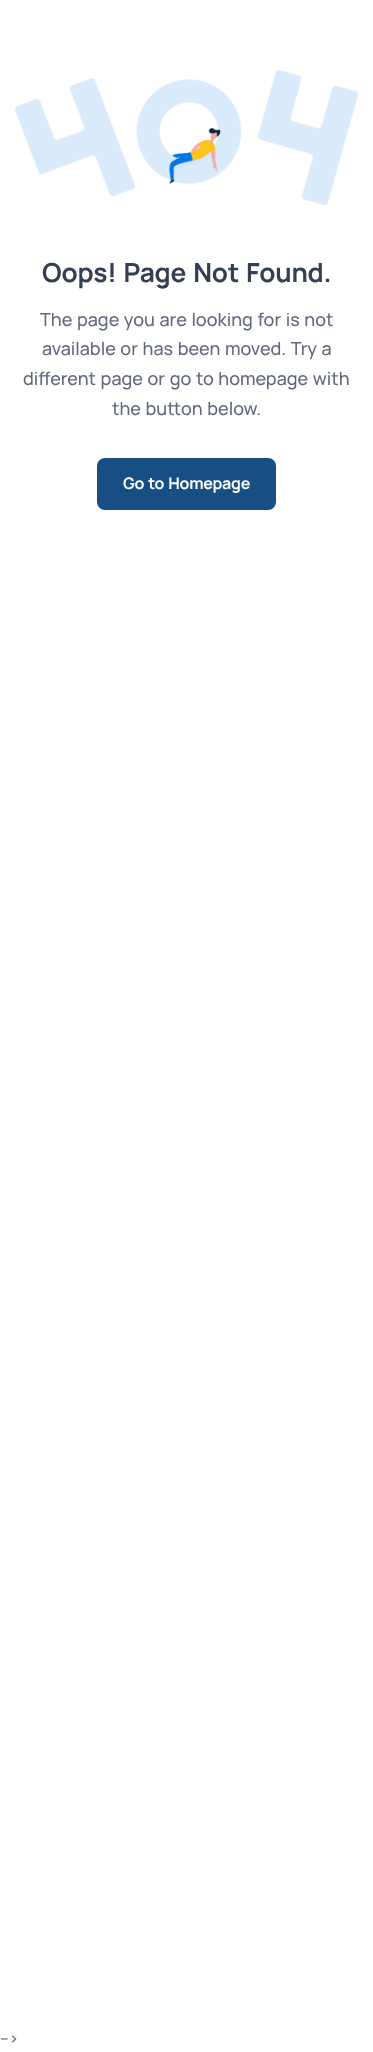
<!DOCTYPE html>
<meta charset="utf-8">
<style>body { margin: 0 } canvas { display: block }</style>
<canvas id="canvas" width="373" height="2052"></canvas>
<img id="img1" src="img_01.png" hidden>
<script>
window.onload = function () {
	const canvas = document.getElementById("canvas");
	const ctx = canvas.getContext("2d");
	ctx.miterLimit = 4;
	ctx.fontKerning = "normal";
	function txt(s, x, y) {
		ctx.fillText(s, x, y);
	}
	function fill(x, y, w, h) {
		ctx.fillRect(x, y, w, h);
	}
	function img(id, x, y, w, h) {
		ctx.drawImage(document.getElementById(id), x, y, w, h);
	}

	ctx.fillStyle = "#FFFFFF";
	fill(0, 0, 373, 2052);
	img("img1", 15, 70, 343, 135);
	ctx.fillStyle = "#174F85";
	ctx.beginPath();
	ctx.roundRect(98, 459, 177, 50, 7);
	ctx.fill();
	ctx.strokeStyle = "#174F85";
	ctx.lineWidth = 2;
	ctx.stroke();
	ctx.letterSpacing = "-0.2px";
	ctx.wordSpacing = "2px";
	ctx.font = "bold 26.25px Manrope";
	ctx.fillStyle = "#343F52";
	txt("Oops! Page Not Found.", 42, 282);
	ctx.letterSpacing = "0px";
	ctx.wordSpacing = "1px";
	ctx.font = "500 18px Manrope";
	ctx.fillStyle = "#60697B";
	txt("The page you are looking for is not", 40, 326);
	txt("available or has been moved. Try a", 42, 355);
	txt("different page or go to homepage with", 23, 385);
	txt("the button below.", 112, 415);
	ctx.letterSpacing = "-0.2px";
	ctx.font = "bold 16px Manrope";
	ctx.fillStyle = "#FFFFFF";
	txt("Go to Homepage", 123, 489);
	ctx.letterSpacing = "0px";
	ctx.wordSpacing = "0px";
	ctx.font = "500 16px Manrope";
	ctx.fillStyle = "#60697B";
	txt("-->", 0, 2044);
};
</script>
